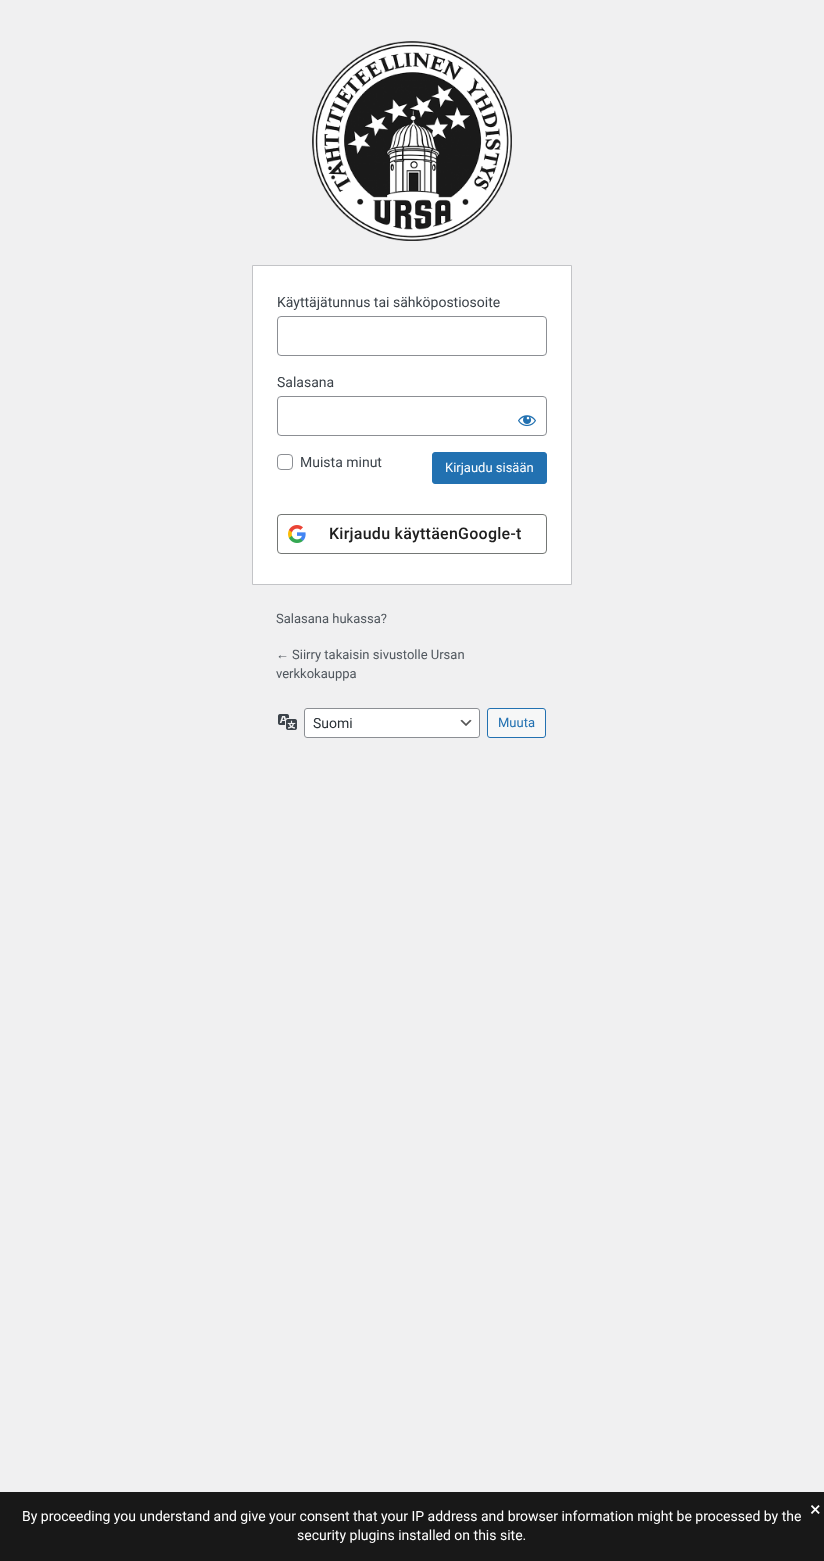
<!DOCTYPE html>
<meta charset="utf-8">
<style>body { margin: 0 } canvas { display: block }</style>
<canvas id="canvas" width="824" height="1561"></canvas>
<img id="img1" src="img_01.png" hidden>
<img id="img2" src="img_02.png" hidden>
<img id="img3" src="img_03.png" hidden>
<img id="img4" src="img_04.png" hidden>
<img id="img5" src="img_05.png" hidden>
<script>
window.onload = function () {
	const canvas = document.getElementById("canvas");
	const ctx = canvas.getContext("2d");
	ctx.miterLimit = 4;
	ctx.fontKerning = "normal";
	function txt(s, x, y) {
		ctx.fillText(s, x, y);
	}
	function fill(x, y, w, h) {
		ctx.fillRect(x, y, w, h);
	}
	function round(x, y, w, h, r) {
		ctx.beginPath();
		ctx.roundRect(x, y, w, h, r);
		ctx.fill();
	}
	function img(id, x, y, w, h) {
		ctx.drawImage(document.getElementById(id), x, y, w, h);
	}

	ctx.fillStyle = "#F0F0F1";
	fill(0, 0, 824, 1561);
	img("img1", 312, 41, 200, 200);
	ctx.fillStyle = "#FFFFFF";
	ctx.beginPath();
	ctx.rect(252.5, 265.5, 319, 319);
	ctx.fill();
	ctx.strokeStyle = "#C3C4C7";
	ctx.stroke();
	ctx.beginPath();
	ctx.roundRect(277.5, 316.5, 269, 39, 3.5);
	ctx.strokeStyle = "#8C8F94";
	ctx.stroke();
	ctx.beginPath();
	ctx.roundRect(277.5, 396.5, 269, 39, 3.5);
	ctx.stroke();
	img("img2", 518, 415, 18, 12);
	ctx.beginPath();
	ctx.roundRect(277.5, 454.5, 15, 15, 3.5);
	ctx.stroke();
	ctx.fillStyle = "#2271B1";
	ctx.beginPath();
	ctx.roundRect(432.5, 452.5, 114, 31, 2.5);
	ctx.fill();
	ctx.strokeStyle = "#2271B1";
	ctx.stroke();
	ctx.beginPath();
	ctx.roundRect(277.5, 514.5, 269, 39, 3.5);
	ctx.strokeStyle = "#747775";
	ctx.stroke();
	img("img3", 288, 525, 18, 18);
	img("img4", 278, 714, 19, 16);
	ctx.fillStyle = "#FFFFFF";
	round(304, 708, 176, 30, 3);
	img("img5", 460, 719, 12, 7);
	ctx.beginPath();
	ctx.roundRect(304.5, 708.5, 175, 29, 2.5);
	ctx.strokeStyle = "#8C8F94";
	ctx.stroke();
	ctx.fillStyle = "#F6F7F7";
	ctx.beginPath();
	ctx.roundRect(487.5, 708.5, 58, 29, 2.5);
	ctx.fill();
	ctx.strokeStyle = "#2271B1";
	ctx.stroke();
	ctx.fillStyle = "#181818";
	fill(0, 1492, 824, 69);
	ctx.font = "14px Roboto";
	ctx.fillStyle = "#3C434A";
	txt("Käyttäjätunnus tai sähköpostiosoite", 277, 307);
	txt("Salasana", 277, 387);
	txt("Muista minut", 300, 467);
	ctx.font = "13px Roboto";
	ctx.fillStyle = "#FFFFFF";
	txt("Kirjaudu sisään", 445, 472);
	ctx.letterSpacing = "0.25px";
	ctx.font = "500 16px Roboto";
	ctx.fillStyle = "#1F1F1F";
	txt("Kirjaudu käyttäenGoogle-t", 329, 539);
	ctx.letterSpacing = "0px";
	ctx.font = "13px Roboto";
	ctx.fillStyle = "#50575E";
	txt("Salasana hukassa?", 276, 623);
	ctx.font = "13px Liberation Sans";
	txt("←", 276, 659);
	ctx.font = "13px Roboto";
	txt("Siirry takaisin sivustolle Ursan", 292, 659);
	txt("verkkokauppa", 276, 678);
	ctx.font = "14px Roboto";
	ctx.fillStyle = "#2C3338";
	txt("Suomi", 313, 728);
	ctx.font = "13px Roboto";
	ctx.fillStyle = "#2271B1";
	txt("Muuta", 498, 727);
	ctx.font = "14px Roboto";
	ctx.fillStyle = "#FFFFFF";
	txt("By proceeding you understand and give your consent that your IP address and browser information might be processed by the", 22, 1521);
	txt("security plugins installed on this site.", 297, 1540);
	ctx.font = "20px Roboto";
	txt("×", 810, 1516);
};
</script>
